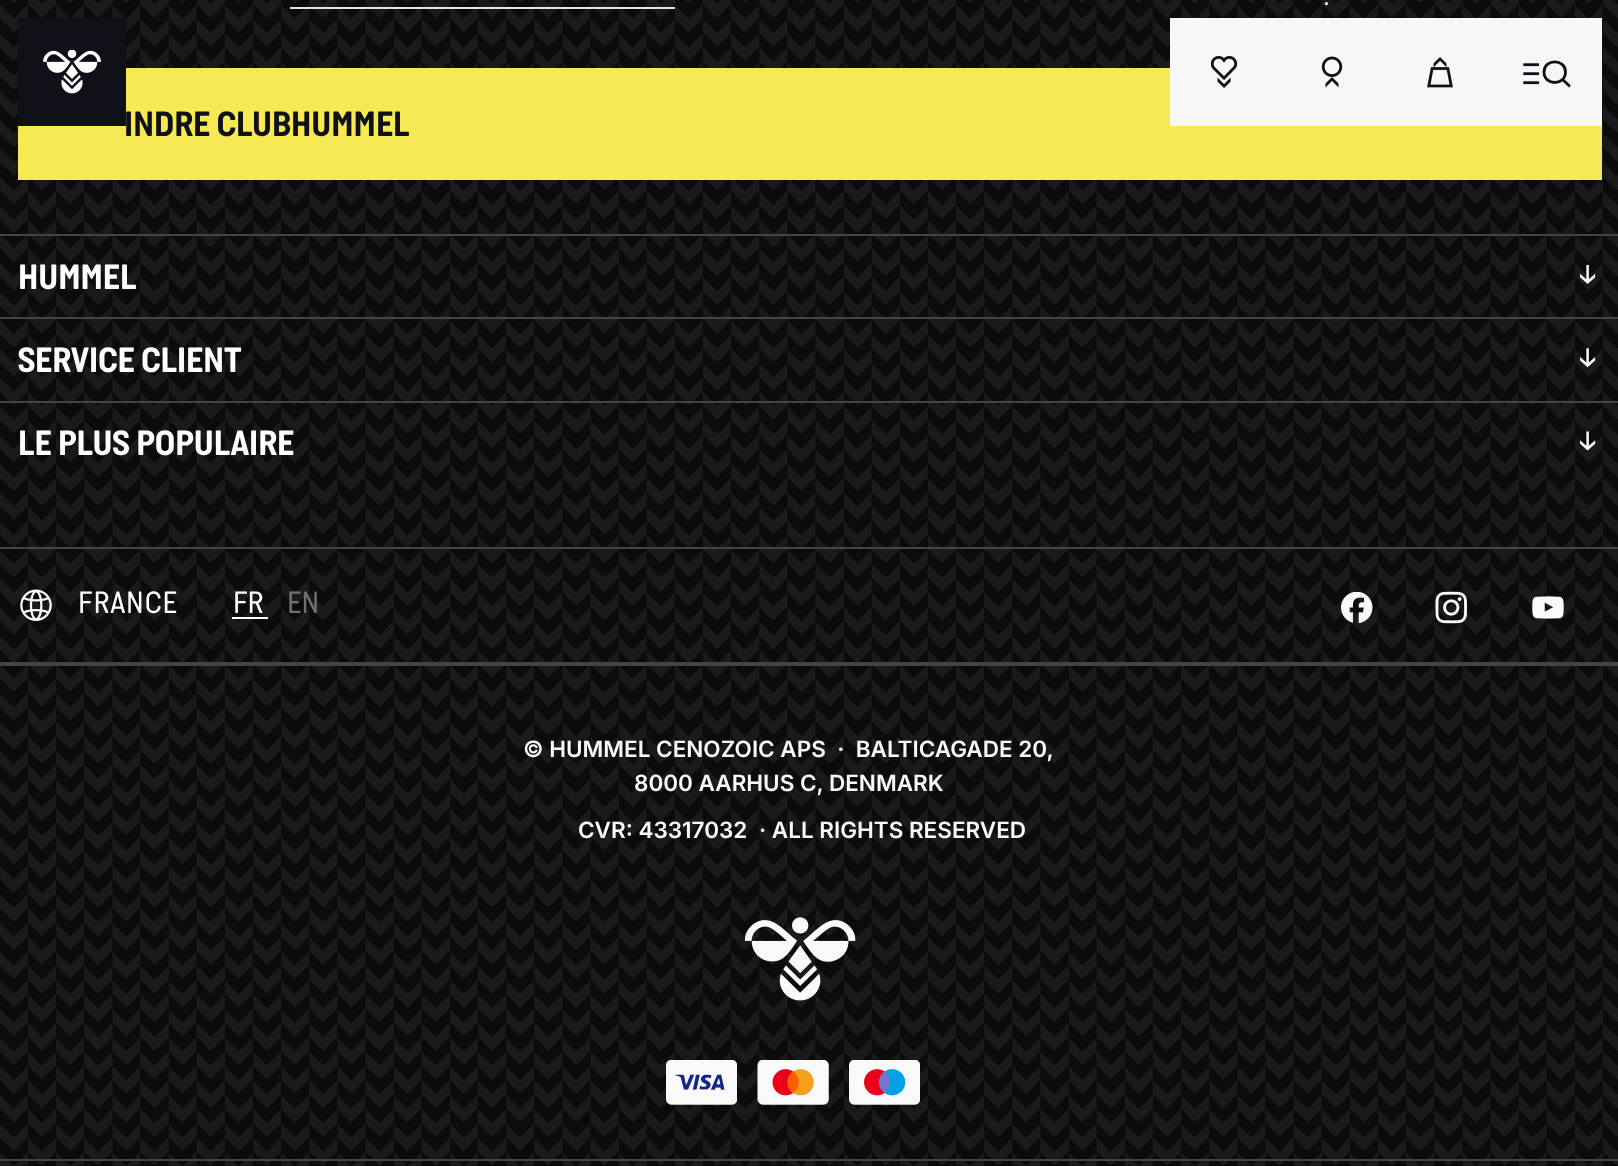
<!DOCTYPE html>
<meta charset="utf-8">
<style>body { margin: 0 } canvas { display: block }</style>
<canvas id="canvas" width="1618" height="1166"></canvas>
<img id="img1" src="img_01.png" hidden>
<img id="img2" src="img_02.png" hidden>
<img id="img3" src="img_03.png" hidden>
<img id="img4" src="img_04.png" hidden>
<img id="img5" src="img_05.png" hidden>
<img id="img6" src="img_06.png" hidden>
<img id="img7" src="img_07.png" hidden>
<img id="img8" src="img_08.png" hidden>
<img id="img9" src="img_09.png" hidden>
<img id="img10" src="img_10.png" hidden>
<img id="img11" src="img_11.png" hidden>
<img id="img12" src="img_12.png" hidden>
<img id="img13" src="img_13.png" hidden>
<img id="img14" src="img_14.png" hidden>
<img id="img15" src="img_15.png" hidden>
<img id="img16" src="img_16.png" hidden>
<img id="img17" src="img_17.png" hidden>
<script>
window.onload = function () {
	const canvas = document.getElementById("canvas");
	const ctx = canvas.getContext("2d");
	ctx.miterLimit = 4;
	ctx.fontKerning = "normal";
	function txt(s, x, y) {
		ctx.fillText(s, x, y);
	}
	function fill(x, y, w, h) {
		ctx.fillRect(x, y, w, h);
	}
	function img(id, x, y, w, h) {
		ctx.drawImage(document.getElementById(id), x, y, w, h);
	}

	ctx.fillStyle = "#1A1A1A";
	fill(0, 0, 1618, 1166);
	img("img1", 0, 0, 1618, 1166);
	ctx.fillStyle = "#E3E3E3";
	fill(290, 7, 385, 2);
	ctx.fillStyle = "#F6E952";
	fill(18, 68, 1584, 112);
	ctx.fillStyle = "#444444";
	fill(0, 234, 1618, 2);
	img("img2", 1580, 265, 16, 19);
	fill(0, 317, 1618, 2);
	img("img3", 1580, 348, 16, 20);
	fill(0, 401, 1618, 2);
	img("img4", 1580, 431, 16, 20);
	fill(0, 547, 1618, 2);
	fill(0, 662, 1618, 4);
	img("img5", 20, 589, 32, 32);
	ctx.fillStyle = "#FFFFFF";
	fill(232, 617, 36, 2);
	img("img6", 1341, 592, 32, 31);
	img("img7", 1435, 591, 32, 33);
	img("img8", 1532, 596, 32, 23);
	ctx.fillStyle = "#444444";
	fill(0, 1159, 1618, 2);
	img("img9", 745, 917, 111, 84);
	img("img10", 666, 1060, 71, 45);
	img("img11", 757, 1060, 72, 45);
	img("img12", 849, 1060, 71, 45);
	ctx.fillStyle = "#0F1018";
	fill(18, 18, 108, 108);
	img("img13", 43, 50, 58, 44);
	ctx.fillStyle = "#F7F7F7";
	fill(1170, 18, 216, 108);
	img("img14", 1211, 56, 27, 32);
	img("img15", 1321, 56, 22, 32);
	fill(1386, 18, 216, 108);
	img("img16", 1427, 57, 26, 31);
	img("img17", 1523, 63, 17, 22);
	ctx.beginPath();
	ctx.moveTo(1570, 86.5);
	ctx.lineTo(1562.5, 79.5);
	ctx.moveTo(1565.5, 72);
	ctx.bezierCurveTo(1565.5, 86, 1544, 86, 1544, 72);
	ctx.bezierCurveTo(1544, 58.5, 1565.5, 58.5, 1565.5, 72);
	ctx.closePath();
	ctx.strokeStyle = "#0F1018";
	ctx.lineWidth = 2.8;
	ctx.stroke();
	ctx.font = "500 22.5px Inter";
	ctx.fillStyle = "#E3E3E3";
	txt(".", 1323, 5);
	ctx.font = "bold 36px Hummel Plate";
	ctx.fillStyle = "#0F1018";
	txt("INDRE CLUBHUMMEL", 124, 136);
	ctx.fillStyle = "#FFFFFF";
	txt("HUMMEL", 18, 289);
	txt("SERVICE CLIENT", 18, 372);
	txt("LE PLUS POPULAIRE", 18, 455);
	ctx.letterSpacing = "1px";
	ctx.font = "31.5px Hummel Plate";
	txt("FRANCE", 78, 613);
	ctx.letterSpacing = "0px";
	txt("FR", 233, 613);
	ctx.fillStyle = "#707070";
	txt("EN", 287, 613);
	ctx.font = "600 22.5px Inter";
	ctx.fillStyle = "#F9F9F9";
	txt("© HUMMEL CENOZOIC APS  ·  BALTICAGADE 20,", 523, 757);
	txt("8000 AARHUS C, DENMARK", 634, 791);
	txt("CVR: 43317032", 578, 838);
	txt("· ALL RIGHTS RESERVED", 759, 838);
};
</script>
